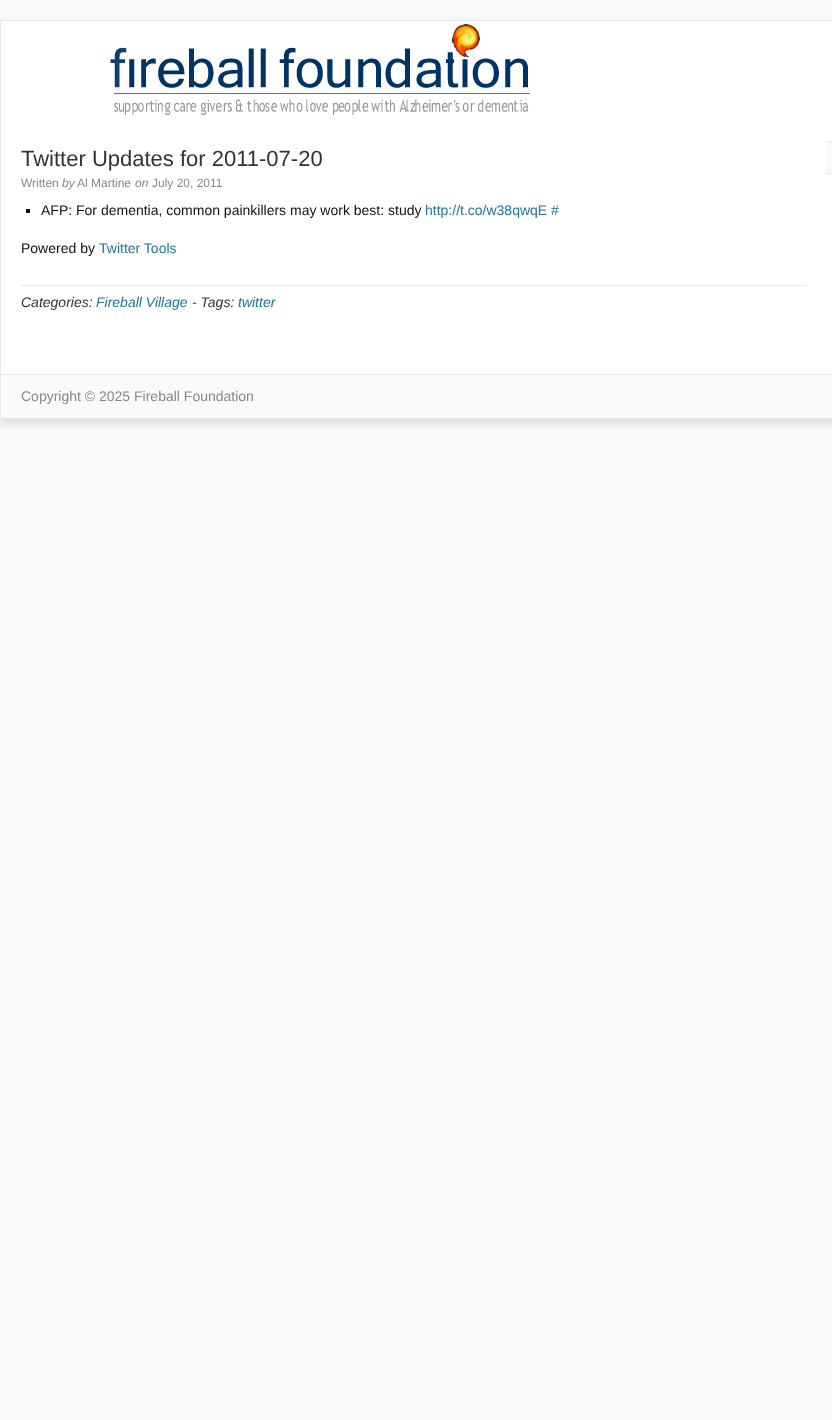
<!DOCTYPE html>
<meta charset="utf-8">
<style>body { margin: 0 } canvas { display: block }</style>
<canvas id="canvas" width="832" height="1420"></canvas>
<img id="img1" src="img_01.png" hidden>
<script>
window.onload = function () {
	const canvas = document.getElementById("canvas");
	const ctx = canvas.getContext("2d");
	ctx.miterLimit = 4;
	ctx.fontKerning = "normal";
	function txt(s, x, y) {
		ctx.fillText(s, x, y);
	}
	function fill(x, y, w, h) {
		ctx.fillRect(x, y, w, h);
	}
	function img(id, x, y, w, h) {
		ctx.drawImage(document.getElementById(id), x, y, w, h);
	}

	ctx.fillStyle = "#FAFAFA";
	fill(0, 0, 832, 1420);
	ctx.fillStyle = "#DDDDDD";
	ctx.filter = "blur(5px)";
	ctx.beginPath();
	ctx.rect(0, 25, 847, 399);
	ctx.fill();
	ctx.filter = "none";
	ctx.fillStyle = "#FFFFFF";
	fill(1, 21, 831, 353);
	ctx.strokeStyle = "#E8E8E8";
	ctx.strokeRect(0.5, 20.5, 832, 398);
	img("img1", 110, 24, 420, 91);
	ctx.fillStyle = "#111111";
	fill(26, 209, 4, 4);
	ctx.fillStyle = "#E8E8E8";
	fill(21, 285, 785, 1);
	ctx.fillStyle = "#FAFAFA";
	fill(826, 142, 6, 31);
	ctx.fillStyle = "#E8E8E8";
	fill(826, 141, 6, 1);
	fill(826, 173, 6, 1);
	ctx.fillStyle = "#FAFAFA";
	fill(1, 375, 831, 43);
	ctx.fillStyle = "#E8E8E8";
	fill(1, 374, 831, 1);
	ctx.font = "22px Liberation Sans";
	ctx.fillStyle = "#333333";
	txt("Twitter Updates for 2011-07-20", 21, 166);
	ctx.font = "12px Liberation Sans";
	ctx.fillStyle = "#888888";
	txt("Written", 21, 187);
	ctx.font = "italic 12px Liberation Sans";
	txt("by", 62, 187);
	ctx.font = "12px Liberation Sans";
	txt("Al Martine", 77, 187);
	ctx.font = "italic 12px Liberation Sans";
	txt("on", 135, 187);
	ctx.font = "12px Liberation Sans";
	txt("July 20, 2011", 152, 187);
	ctx.font = "14px Liberation Sans";
	ctx.fillStyle = "#111111";
	txt("AFP: For dementia, common painkillers may work best: study", 41, 215);
	ctx.fillStyle = "#21759B";
	txt("http://t.co/w38qwqE #", 425, 215);
	ctx.fillStyle = "#111111";
	txt("Powered by", 21, 253);
	ctx.fillStyle = "#21759B";
	txt("Twitter Tools", 99, 253);
	ctx.font = "italic 14px Liberation Sans";
	ctx.fillStyle = "#333333";
	txt("Categories:", 21, 307);
	ctx.fillStyle = "#21759B";
	txt("Fireball Village", 96, 307);
	ctx.fillStyle = "#333333";
	txt("- Tags:", 192, 307);
	ctx.fillStyle = "#21759B";
	txt("twitter", 238, 307);
	ctx.font = "14px Liberation Sans";
	ctx.fillStyle = "#888888";
	txt("Copyright © 2025 Fireball Foundation", 21, 401);
};
</script>
